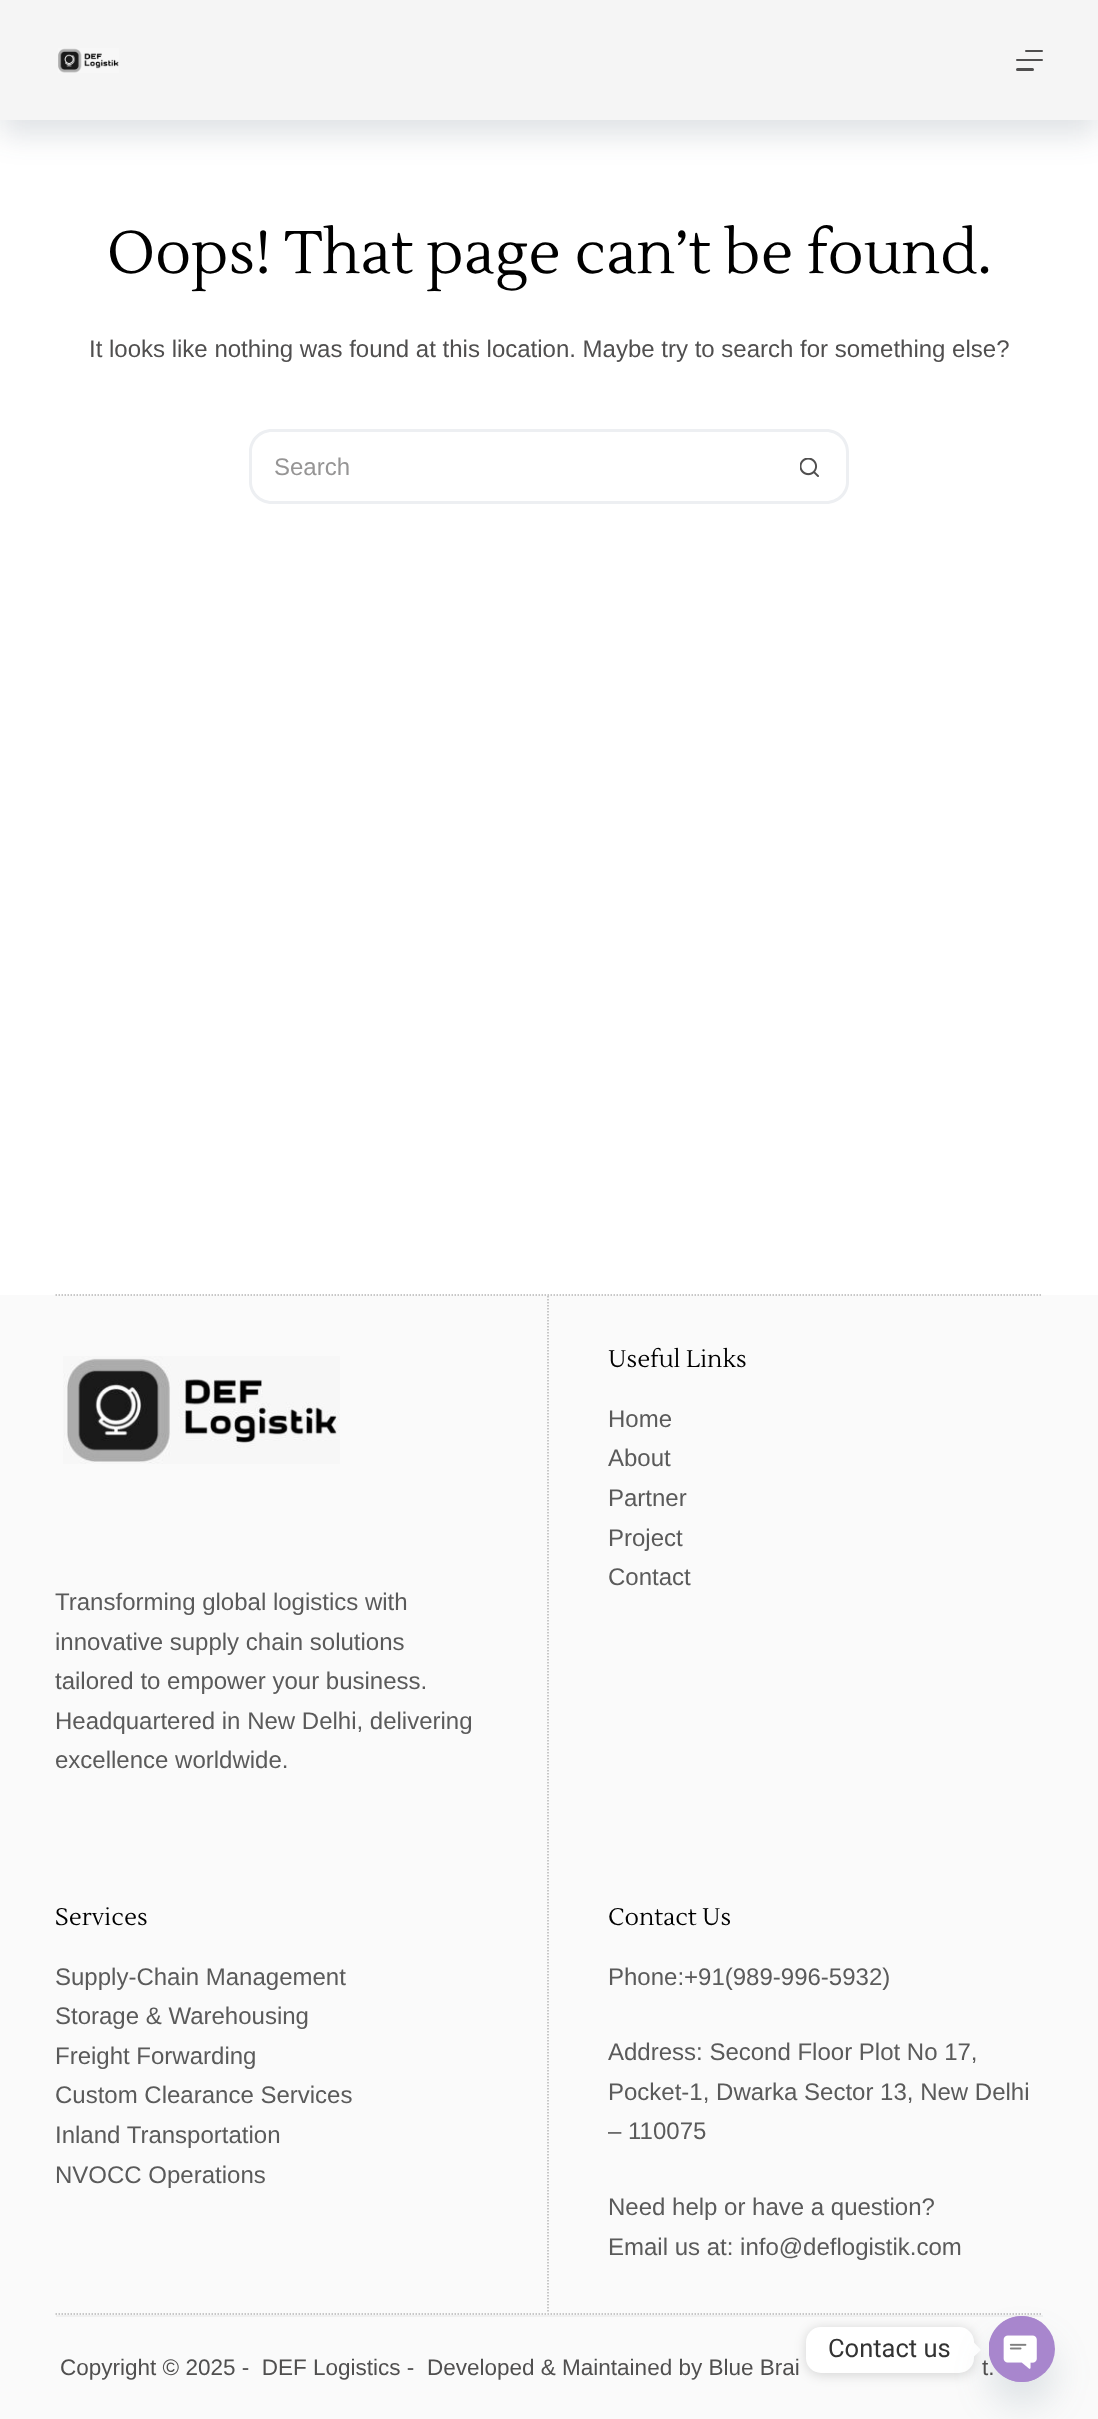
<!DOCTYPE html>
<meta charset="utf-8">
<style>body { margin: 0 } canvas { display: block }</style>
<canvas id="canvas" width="1098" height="2419"></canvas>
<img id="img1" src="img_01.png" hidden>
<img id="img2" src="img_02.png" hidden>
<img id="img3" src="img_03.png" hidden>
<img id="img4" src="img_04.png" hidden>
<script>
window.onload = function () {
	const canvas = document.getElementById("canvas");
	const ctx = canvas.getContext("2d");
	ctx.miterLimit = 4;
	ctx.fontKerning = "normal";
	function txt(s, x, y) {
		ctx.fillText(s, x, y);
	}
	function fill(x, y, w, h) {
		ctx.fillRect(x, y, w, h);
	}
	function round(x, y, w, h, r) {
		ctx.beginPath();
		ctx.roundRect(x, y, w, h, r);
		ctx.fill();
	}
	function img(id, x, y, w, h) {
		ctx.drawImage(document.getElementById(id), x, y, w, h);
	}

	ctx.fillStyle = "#FFFFFF";
	fill(0, 0, 1098, 2419);
	ctx.fillStyle = "rgba(43, 61, 79, 0.15)";
	ctx.filter = "blur(15px)";
	ctx.beginPath();
	ctx.rect(0, 15, 1098, 120);
	ctx.fill();
	ctx.filter = "none";
	ctx.fillStyle = "#F5F5F5";
	fill(0, 0, 1098, 120);
	img("img1", 58, 48, 61, 25);
	ctx.fillStyle = "#504F4F";
	round(1025, 50, 18, 2, 1);
	round(1016, 59, 27, 2, 1);
	round(1016, 68, 18, 3, 1.5);
	ctx.fillStyle = "#EDEFF2";
	ctx.beginPath();
	ctx.moveTo(272, 429);
	ctx.lineTo(774, 429);
	ctx.lineTo(774, 504);
	ctx.lineTo(272, 504);
	ctx.bezierCurveTo(259, 504, 249, 494, 249, 482);
	ctx.lineTo(249, 452);
	ctx.bezierCurveTo(249, 439, 259, 429, 272, 429);
	ctx.closePath();
	ctx.moveTo(272, 432);
	ctx.lineTo(774, 432);
	ctx.lineTo(774, 501);
	ctx.lineTo(272, 501);
	ctx.bezierCurveTo(261, 501, 252, 492, 252, 482);
	ctx.lineTo(252, 452);
	ctx.bezierCurveTo(252, 441, 261, 432, 272, 432);
	ctx.closePath();
	ctx.fill("evenodd");
	ctx.beginPath();
	ctx.moveTo(774, 429);
	ctx.lineTo(826, 429);
	ctx.bezierCurveTo(839, 429, 849, 439, 849, 452);
	ctx.lineTo(849, 482);
	ctx.bezierCurveTo(849, 494, 839, 504, 826, 504);
	ctx.lineTo(774, 504);
	ctx.closePath();
	ctx.moveTo(774, 432);
	ctx.lineTo(826, 432);
	ctx.bezierCurveTo(837, 432, 846, 441, 846, 452);
	ctx.lineTo(846, 482);
	ctx.bezierCurveTo(846, 492, 837, 501, 826, 501);
	ctx.lineTo(774, 501);
	ctx.closePath();
	ctx.fill("evenodd");
	img("img2", 800, 458, 19, 19);
	ctx.fillStyle = "#FAFAFA";
	fill(0, 1295, 1098, 1124);
	ctx.beginPath();
	ctx.moveTo(55.5, 1295);
	ctx.lineTo(1042.5, 1295);
	ctx.strokeStyle = "#B7B7B7";
	ctx.lineWidth = 1.5;
	ctx.setLineDash([1.5, 1.5]);
	ctx.stroke();
	ctx.beginPath();
	ctx.moveTo(55.5, 2314);
	ctx.lineTo(1042.5, 2314);
	ctx.stroke();
	ctx.beginPath();
	ctx.moveTo(548, 1296);
	ctx.lineTo(548, 2313);
	ctx.stroke();
	img("img3", 63, 1356, 277, 108);
	ctx.fillStyle = "#F0F0F0";
	fill(56, 2315, 987, 2);
	ctx.fillStyle = "rgba(0, 0, 0, 0.15)";
	ctx.filter = "blur(6px)";
	ctx.beginPath();
	ctx.roundRect(806, 2328, 168, 47, 15);
	ctx.fill();
	ctx.filter = "none";
	ctx.fillStyle = "#FFFFFF";
	round(806, 2327, 168, 46, 15);
	ctx.beginPath();
	ctx.moveTo(973.5, 2357);
	ctx.lineTo(973.5, 2342);
	ctx.lineTo(981, 2350);
	ctx.closePath();
	ctx.fill();
	ctx.fillStyle = "rgba(73, 104, 126, 0.16)";
	ctx.filter = "blur(18px)";
	ctx.beginPath();
	ctx.roundRect(989, 2340, 66, 66, 33);
	ctx.fill();
	ctx.filter = "none";
	ctx.font = "60px Lustria";
	ctx.fillStyle = "#000000";
	txt("Oops! That page can’t be found.", 107, 273);
	ctx.font = "24px Liberation Sans";
	ctx.fillStyle = "#504F4F";
	txt("It looks like nothing was found at this location. Maybe try to search for something else?", 89, 357);
	ctx.fillStyle = "#969595";
	txt("Search", 274, 475);
	ctx.font = "24px Lustria";
	ctx.fillStyle = "#000000";
	txt("Useful Links", 608, 1367);
	ctx.font = "24px Liberation Sans";
	ctx.fillStyle = "#5A5A5A";
	txt("Home", 608, 1427);
	txt("About", 608, 1466);
	txt("Partner", 608, 1506);
	txt("Project", 608, 1546);
	txt("Contact", 608, 1585);
	txt("Transforming global logistics with", 55, 1610);
	txt("innovative supply chain solutions", 55, 1650);
	txt("tailored to empower your business.", 55, 1689);
	txt("Headquartered in New Delhi, delivering", 55, 1729);
	txt("excellence worldwide.", 55, 1768);
	ctx.font = "24px Lustria";
	ctx.fillStyle = "#000000";
	txt("Services", 55, 1925);
	ctx.font = "24px Liberation Sans";
	ctx.fillStyle = "#5A5A5A";
	txt("Supply-Chain Management", 55, 1985);
	txt("Storage & Warehousing", 55, 2024);
	txt("Freight Forwarding", 55, 2064);
	txt("Custom Clearance Services", 55, 2103);
	txt("Inland Transportation", 55, 2143);
	txt("NVOCC Operations", 55, 2183);
	ctx.font = "24px Lustria";
	ctx.fillStyle = "#000000";
	txt("Contact Us", 608, 1925);
	ctx.font = "24px Liberation Sans";
	ctx.fillStyle = "#5A5A5A";
	txt("Phone:+91(989-996-5932)", 608, 1985);
	txt("Address: Second Floor Plot No 17,", 608, 2060);
	txt("Pocket-1, Dwarka Sector 13, New Delhi", 608, 2100);
	txt("– 110075", 608, 2139);
	txt("Need help or have a question?", 608, 2215);
	txt("Email us at: info@deflogistik.com", 608, 2255);
	ctx.font = "22.5px Liberation Sans";
	ctx.fillStyle = "#504F4F";
	txt("Copyright © 2025 -  DEF Logistics -", 60, 2375);
	txt("Developed & Maintained by Blue Brai", 427, 2375);
	txt("t.", 982, 2375);
	ctx.font = "25.5px Roboto";
	ctx.fillStyle = "#333333";
	txt("Contact us", 828, 2357);
	ctx.fillStyle = "#A886CD";
	ctx.beginPath();
	ctx.arc(1022, 2349, 33, 0, Math.PI * 2);
	ctx.fill();
	img("img4", 989, 2316, 50, 66);
};
</script>
